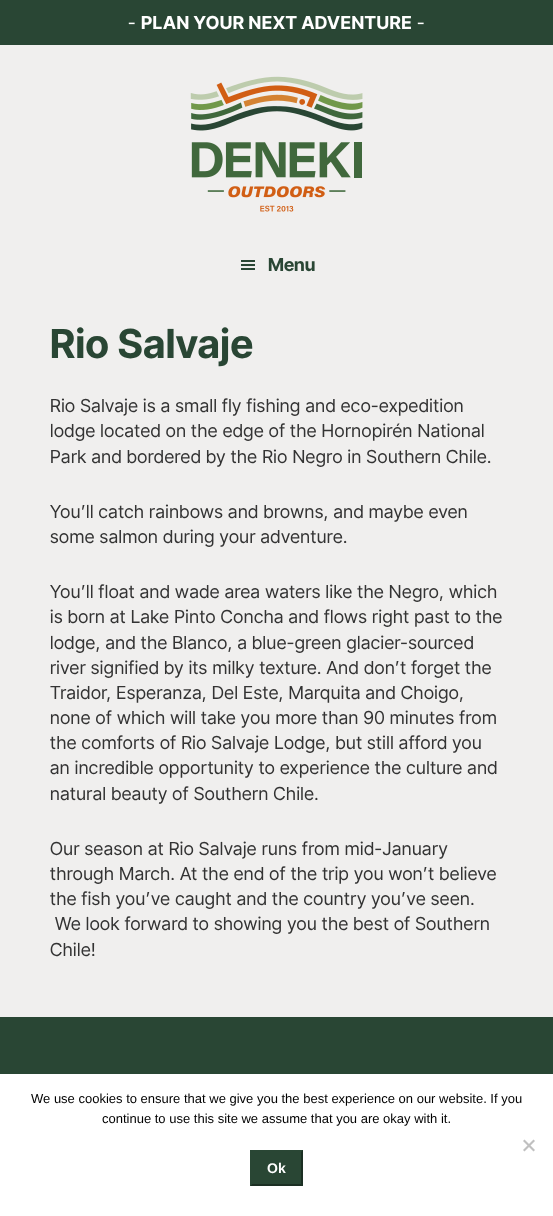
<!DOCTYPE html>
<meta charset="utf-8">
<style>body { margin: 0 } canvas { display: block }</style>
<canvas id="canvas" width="553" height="1216"></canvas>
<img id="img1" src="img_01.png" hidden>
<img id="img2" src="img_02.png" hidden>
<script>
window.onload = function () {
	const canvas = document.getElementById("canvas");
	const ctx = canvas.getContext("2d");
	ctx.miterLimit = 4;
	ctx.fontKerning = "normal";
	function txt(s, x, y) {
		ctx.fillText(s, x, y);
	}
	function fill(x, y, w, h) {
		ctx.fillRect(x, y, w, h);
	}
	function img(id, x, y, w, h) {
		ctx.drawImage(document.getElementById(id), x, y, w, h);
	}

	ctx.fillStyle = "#F0EFEE";
	fill(0, 0, 553, 1216);
	ctx.fillStyle = "#294634";
	fill(0, 0, 553, 45);
	img("img1", 190, 76, 173, 136);
	img("img2", 241, 260, 14, 10);
	fill(0, 1017, 553, 57);
	ctx.fillStyle = "#FFFFFF";
	fill(0, 1074, 553, 142);
	ctx.fillStyle = "#C0C0C0";
	ctx.beginPath();
	ctx.moveTo(533.5, 1139.5);
	ctx.lineTo(535, 1141);
	ctx.lineTo(524.5, 1151.5);
	ctx.lineTo(523, 1150);
	ctx.closePath();
	ctx.fill();
	ctx.beginPath();
	ctx.moveTo(523, 1141);
	ctx.lineTo(524.5, 1139.5);
	ctx.lineTo(535, 1150);
	ctx.lineTo(533.5, 1151.5);
	ctx.closePath();
	ctx.fill();
	ctx.fillStyle = "#294634";
	fill(250, 1150, 53, 36);
	ctx.fillStyle = "#1B2F23";
	ctx.beginPath();
	ctx.moveTo(303, 1150);
	ctx.lineTo(303, 1186);
	ctx.lineTo(301, 1184);
	ctx.lineTo(301, 1152);
	ctx.closePath();
	ctx.fill();
	ctx.beginPath();
	ctx.moveTo(303, 1186);
	ctx.lineTo(250, 1186);
	ctx.lineTo(252, 1184);
	ctx.lineTo(301, 1184);
	ctx.closePath();
	ctx.fill();
	ctx.fillStyle = "#294634";
	ctx.beginPath();
	ctx.moveTo(250, 1186);
	ctx.lineTo(250, 1150);
	ctx.lineTo(252, 1152);
	ctx.lineTo(252, 1184);
	ctx.closePath();
	ctx.fill();
	ctx.letterSpacing = "0.5px";
	ctx.font = "18px Inter Tight";
	ctx.fillStyle = "#FFFFFF";
	txt("-", 128, 29);
	ctx.font = "bold 18px Inter Tight";
	txt("PLAN YOUR NEXT ADVENTURE", 141, 29);
	ctx.font = "18px Inter Tight";
	txt("-", 417, 29);
	ctx.letterSpacing = "0px";
	ctx.font = "bold 18px Inter Tight";
	ctx.fillStyle = "#294634";
	txt("Menu", 268, 271);
	ctx.letterSpacing = "0.5px";
	ctx.font = "bold 40px Inter Tight";
	txt("Rio Salvaje", 50, 358);
	ctx.font = "18px Inter Tight";
	ctx.fillStyle = "#333333";
	txt("Rio Salvaje is a small fly fishing and eco-expedition", 50, 412);
	txt("lodge located on the edge of the Hornopirén National", 50, 437);
	txt("Park and bordered by the Rio Negro in Southern Chile.", 50, 463);
	txt("You’ll catch rainbows and browns, and maybe even", 50, 518);
	txt("some salmon during your adventure.", 50, 543);
	txt("You’ll float and wade area waters like the Negro, which", 50, 598);
	txt("is born at Lake Pinto Concha and flows right past to the", 50, 623);
	txt("lodge, and the Blanco, a blue-green glacier-sourced", 50, 649);
	txt("river signified by its milky texture. And don’t forget the", 50, 674);
	txt("Traidor, Esperanza, Del Este, Marquita and Choigo,", 50, 699);
	txt("none of which will take you more than 90 minutes from", 50, 724);
	txt("the comforts of Rio Salvaje Lodge, but still afford you", 50, 749);
	txt("an incredible opportunity to experience the culture and", 50, 774);
	txt("natural beauty of Southern Chile.", 50, 800);
	txt("Our season at Rio Salvaje runs from mid-January", 50, 855);
	txt("through March. At the end of the trip you won’t believe", 50, 880);
	txt("the fish you’ve caught and the country you’ve seen.", 50, 905);
	txt("We look forward to showing you the best of Southern", 55, 930);
	txt("Chile!", 50, 956);
	ctx.letterSpacing = "0px";
	ctx.font = "13px Liberation Sans";
	ctx.fillStyle = "#000000";
	txt("We use cookies to ensure that we give you the best experience on our website. If you", 31, 1103);
	txt("continue to use this site we assume that you are okay with it.", 102, 1123);
	ctx.font = "bold 14px Liberation Sans";
	ctx.fillStyle = "#FFFFFF";
	txt("Ok", 267, 1173);
};
</script>
